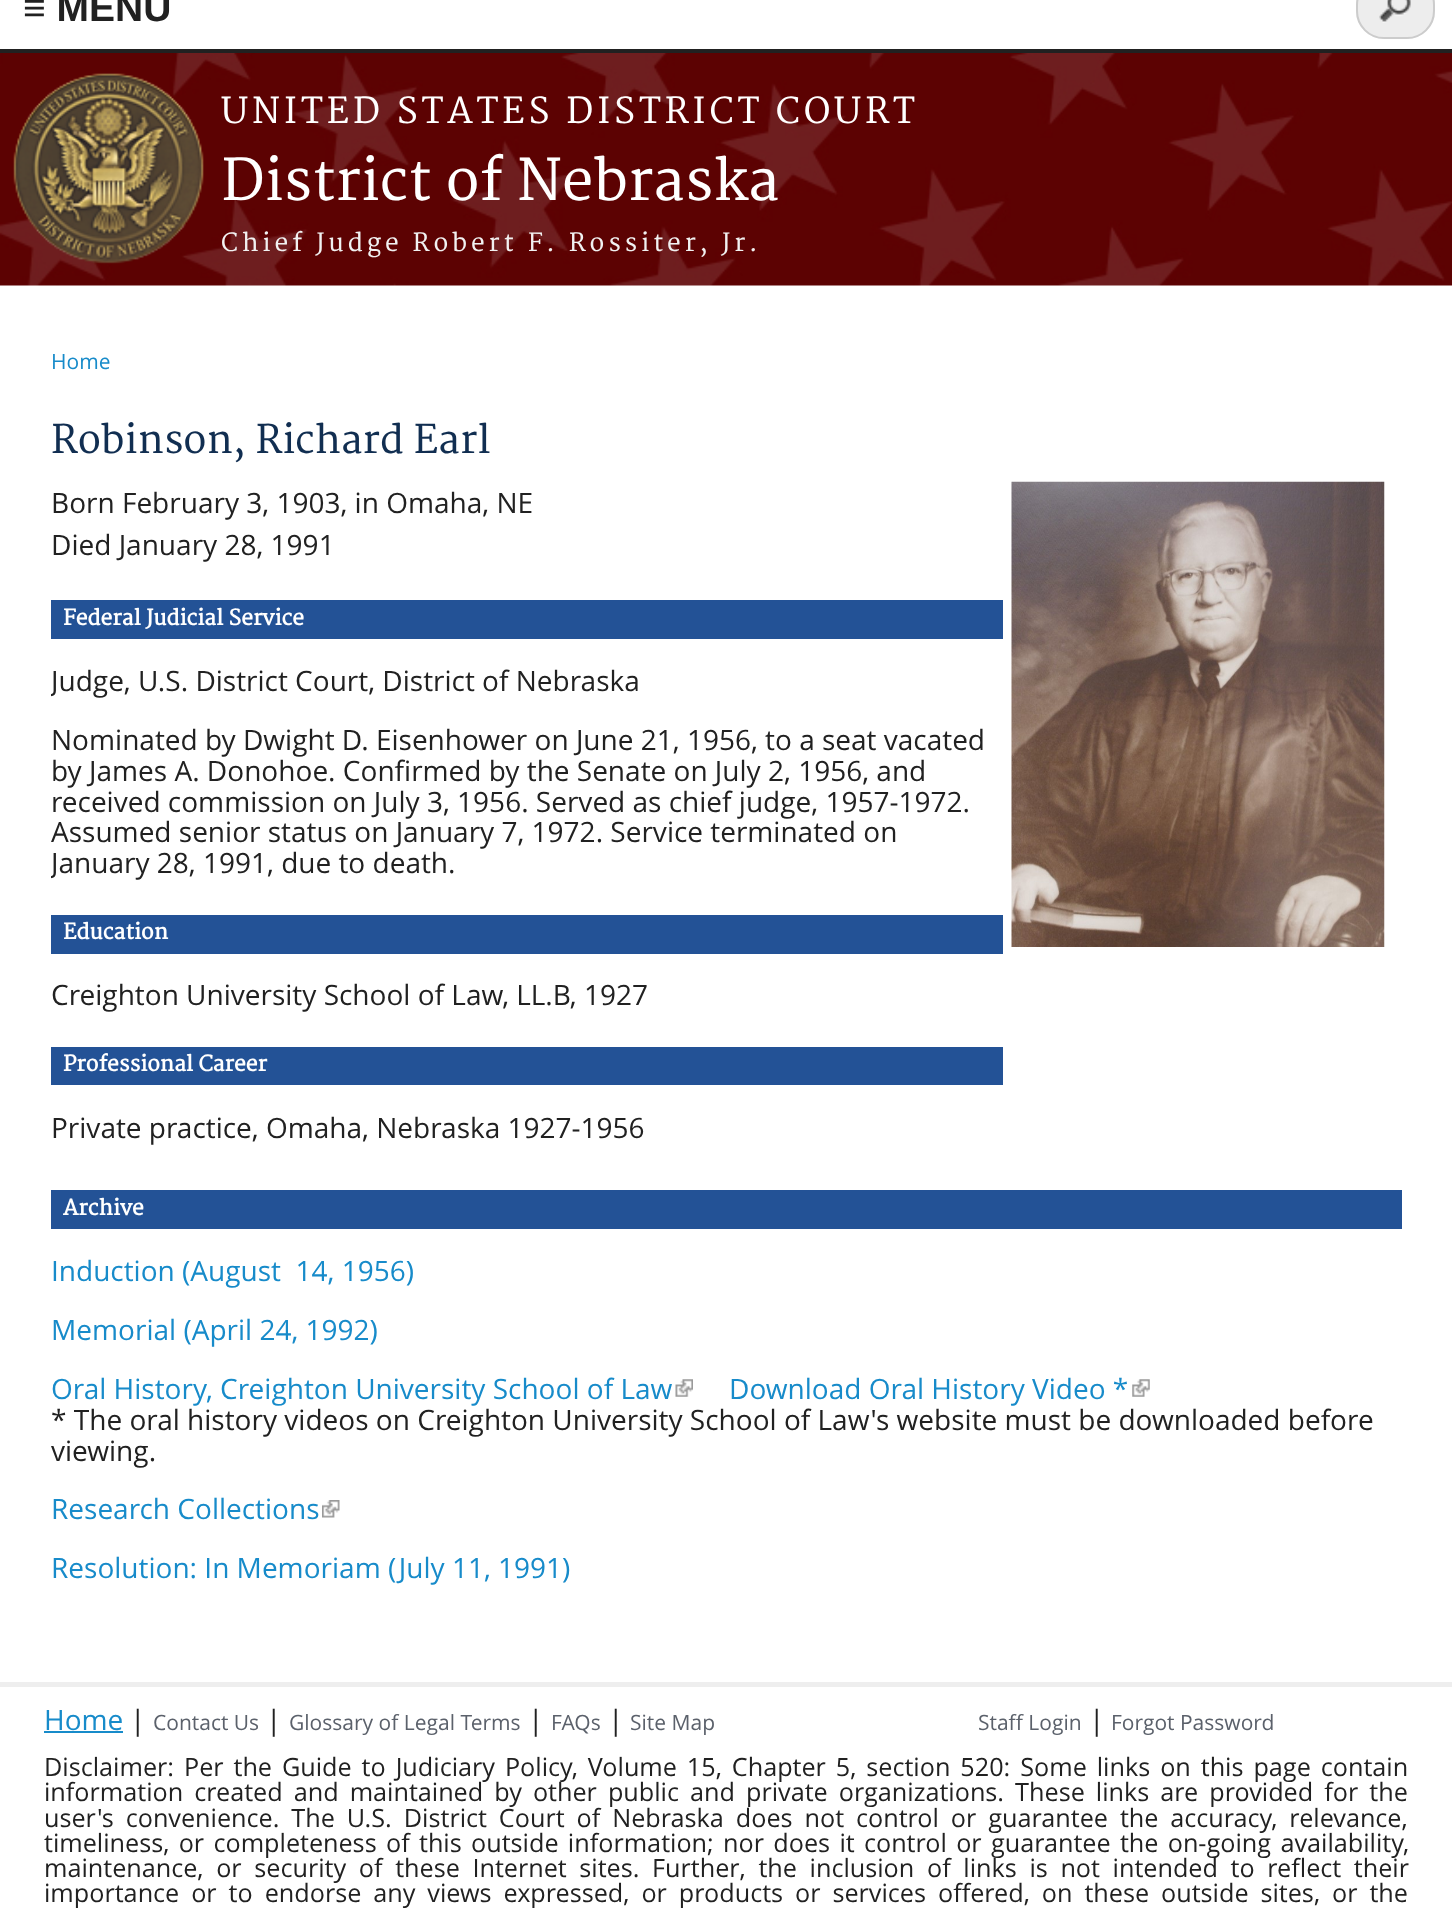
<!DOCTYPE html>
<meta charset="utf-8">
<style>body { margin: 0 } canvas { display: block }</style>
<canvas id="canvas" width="1452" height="1909"></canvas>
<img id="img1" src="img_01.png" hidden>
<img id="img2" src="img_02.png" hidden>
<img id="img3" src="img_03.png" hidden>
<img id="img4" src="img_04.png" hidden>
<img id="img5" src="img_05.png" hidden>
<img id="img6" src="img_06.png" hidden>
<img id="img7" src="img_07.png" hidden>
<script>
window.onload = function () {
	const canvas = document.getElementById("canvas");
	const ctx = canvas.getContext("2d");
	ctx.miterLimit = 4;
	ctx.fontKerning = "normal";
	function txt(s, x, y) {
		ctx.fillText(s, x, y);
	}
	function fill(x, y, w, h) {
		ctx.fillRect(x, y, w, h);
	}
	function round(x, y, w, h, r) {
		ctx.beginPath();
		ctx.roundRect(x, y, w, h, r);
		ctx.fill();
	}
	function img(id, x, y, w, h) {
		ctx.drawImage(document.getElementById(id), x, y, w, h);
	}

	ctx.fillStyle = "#FFFFFF";
	fill(0, 0, 1452, 1909);
	ctx.fillStyle = "#212121";
	fill(0, 49, 1452, 4);
	img("img1", 0, 53, 1452, 233);
	ctx.fillStyle = "#EDEDED";
	round(1356, -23, 79, 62, 28);
	img("img2", 1379, 0, 32, 23);
	ctx.beginPath();
	ctx.roundRect(1357, -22, 77, 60, 27);
	ctx.strokeStyle = "#CCCCCC";
	ctx.lineWidth = 2;
	ctx.stroke();
	img("img3", 13, 73, 191, 191);
	ctx.fillStyle = "#235296";
	fill(51, 600, 952, 39);
	fill(51, 915, 952, 39);
	fill(51, 1047, 952, 38);
	img("img4", 1011, 481, 374, 466);
	fill(51, 1190, 1351, 39);
	img("img5", 675, 1379, 18, 18);
	img("img6", 1132, 1379, 18, 18);
	img("img7", 322, 1500, 18, 18);
	ctx.fillStyle = "#EEEEEE";
	fill(0, 1682, 1452, 5);
	ctx.fillStyle = "#178BCA";
	fill(44, 1731, 79, 2);
	ctx.font = "bold 39px Liberation Sans";
	ctx.fillStyle = "#212121";
	txt("≡ MENU", 23, 21);
	ctx.letterSpacing = "3.85px";
	ctx.font = "35px Merriweather";
	ctx.fillStyle = "#FFFFFF";
	txt("UNITED STATES DISTRICT COURT", 221, 123);
	ctx.letterSpacing = "0px";
	ctx.font = "56px Merriweather";
	txt("District of Nebraska", 221, 200);
	ctx.letterSpacing = "3.85px";
	ctx.font = "24.5px Merriweather";
	ctx.fillStyle = "#F1F1F1";
	txt("Chief Judge Robert F. Rossiter, Jr.", 221, 251);
	ctx.letterSpacing = "0px";
	ctx.font = "21px Open Sans";
	ctx.fillStyle = "#178BCA";
	txt("Home", 51, 369);
	ctx.font = "38.5px Merriweather";
	ctx.fillStyle = "#112E51";
	txt("Robinson, Richard Earl", 51, 453);
	ctx.font = "28px Open Sans";
	ctx.fillStyle = "#212121";
	txt("Born February 3, 1903, in Omaha, NE", 51, 513);
	txt("Died January 28, 1991", 51, 555);
	ctx.font = "bold 21px Merriweather";
	ctx.fillStyle = "#FFFFFF";
	txt("Federal Judicial Service", 63, 625);
	ctx.save();
	ctx.beginPath();
	ctx.rect(51, 481, 1351, 667);
	ctx.clip();
	ctx.font = "28px Open Sans";
	ctx.fillStyle = "#212121";
	txt("Judge, U.S. District Court, District of Nebraska", 51, 691);
	ctx.restore();
	ctx.font = "28px Open Sans";
	ctx.fillStyle = "#212121";
	txt("Nominated by Dwight D. Eisenhower on June 21, 1956, to a seat vacated", 51, 750);
	txt("by James A. Donohoe. Confirmed by the Senate on July 2, 1956, and", 51, 781);
	txt("received commission on July 3, 1956. Served as chief judge, 1957-1972.", 51, 812);
	txt("Assumed senior status on January 7, 1972. Service terminated on", 51, 842);
	ctx.save();
	ctx.beginPath();
	ctx.rect(51, 481, 1351, 667);
	ctx.clip();
	txt("January 28, 1991, due to death.", 51, 873);
	ctx.restore();
	ctx.font = "bold 21px Merriweather";
	ctx.fillStyle = "#FFFFFF";
	txt("Education", 63, 939);
	ctx.font = "28px Open Sans";
	ctx.fillStyle = "#212121";
	txt("Creighton University School of Law, LL.B, 1927", 51, 1005);
	ctx.font = "bold 21px Merriweather";
	ctx.fillStyle = "#FFFFFF";
	txt("Professional Career", 63, 1071);
	ctx.font = "28px Open Sans";
	ctx.fillStyle = "#212121";
	txt("Private practice, Omaha, Nebraska 1927-1956", 51, 1138);
	ctx.font = "bold 21px Merriweather";
	ctx.fillStyle = "#FFFFFF";
	txt("Archive", 63, 1215);
	ctx.font = "28px Open Sans";
	ctx.fillStyle = "#178BCA";
	txt("Induction (August  14, 1956)", 51, 1281);
	txt("Memorial (April 24, 1992)", 51, 1340);
	txt("Oral History, Creighton University School of Law", 51, 1399);
	txt("Download Oral History Video *", 729, 1399);
	ctx.fillStyle = "#212121";
	txt("* The oral history videos on Creighton University School of Law's website must be downloaded before", 51, 1430);
	txt("viewing.", 51, 1461);
	ctx.fillStyle = "#178BCA";
	txt("Research Collections", 51, 1519);
	txt("Resolution: In Memoriam (July 11, 1991)", 51, 1578);
	txt("Home", 44, 1730);
	ctx.fillStyle = "#212121";
	txt("|", 130, 1730);
	ctx.font = "21px Open Sans";
	ctx.fillStyle = "#5B616B";
	txt("Contact Us", 153, 1730);
	ctx.font = "28px Open Sans";
	ctx.fillStyle = "#212121";
	txt("|", 266, 1730);
	ctx.font = "21px Open Sans";
	ctx.fillStyle = "#5B616B";
	txt("Glossary of Legal Terms", 289, 1730);
	ctx.font = "28px Open Sans";
	ctx.fillStyle = "#212121";
	txt("|", 528, 1730);
	ctx.font = "21px Open Sans";
	ctx.fillStyle = "#5B616B";
	txt("FAQs", 551, 1730);
	ctx.font = "28px Open Sans";
	ctx.fillStyle = "#212121";
	txt("|", 608, 1730);
	ctx.font = "21px Open Sans";
	ctx.fillStyle = "#5B616B";
	txt("Site Map", 630, 1730);
	txt("Staff Login", 978, 1730);
	ctx.font = "28px Open Sans";
	ctx.fillStyle = "#212121";
	txt("|", 1089, 1730);
	ctx.font = "21px Open Sans";
	ctx.fillStyle = "#5B616B";
	txt("Forgot Password", 1111, 1730);
	ctx.wordSpacing = "3.4px";
	ctx.font = "25.2px Open Sans";
	ctx.fillStyle = "#212121";
	txt("Disclaimer: Per the Guide to Judiciary Policy, Volume 15, Chapter 5, section 520: Some links on this page contain", 44, 1776);
	ctx.wordSpacing = "4.5px";
	txt("information created and maintained by other public and private organizations. These links are provided for the", 44, 1801);
	ctx.wordSpacing = "5.4px";
	txt("user's convenience. The U.S. District Court of Nebraska does not control or guarantee the accuracy, relevance,", 44, 1827);
	ctx.wordSpacing = "2.75px";
	txt("timeliness, or completeness of this outside information; nor does it control or guarantee the on-going availability,", 44, 1852);
	ctx.wordSpacing = "6.1px";
	txt("maintenance, or security of these Internet sites. Further, the inclusion of links is not intended to reflect their", 44, 1877);
	ctx.wordSpacing = "5.4px";
	txt("importance or to endorse any views expressed, or products or services offered, on these outside sites, or the", 44, 1902);
};
</script>
